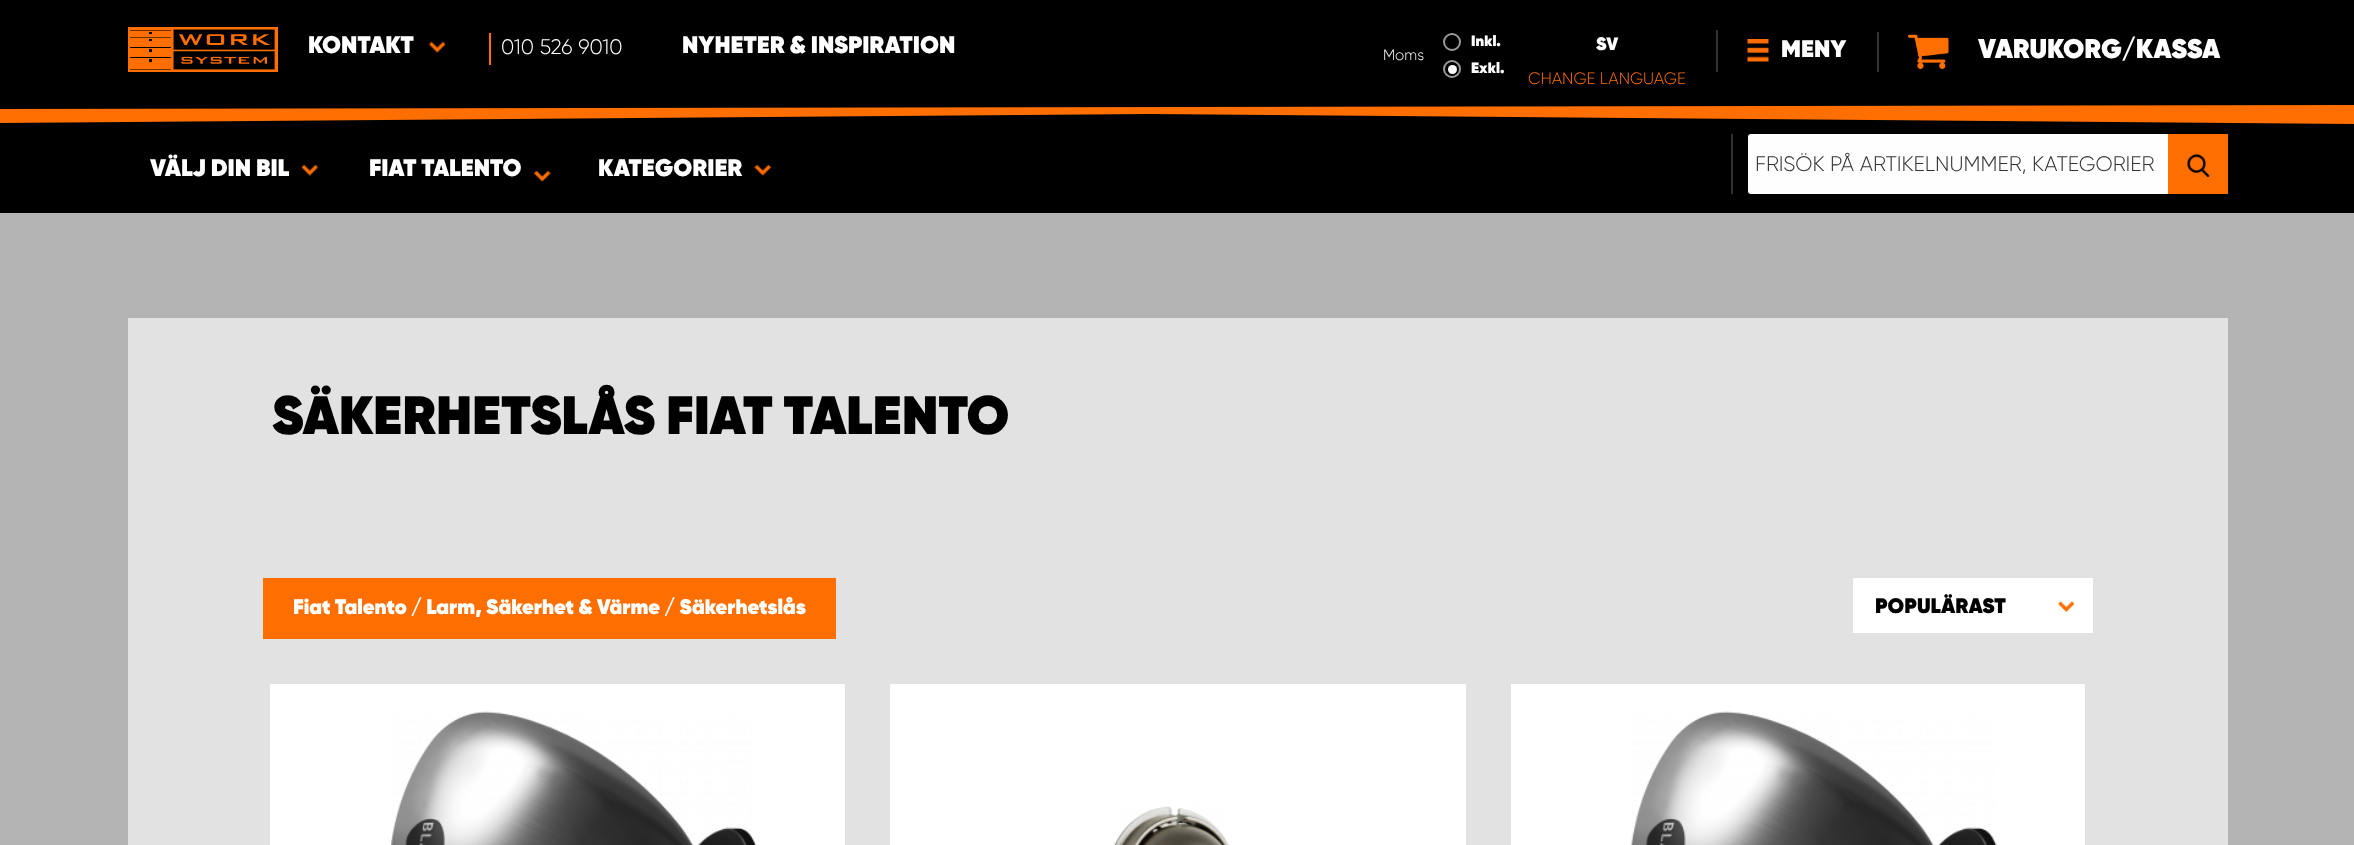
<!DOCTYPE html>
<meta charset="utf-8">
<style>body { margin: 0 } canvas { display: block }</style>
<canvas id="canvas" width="2354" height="845"></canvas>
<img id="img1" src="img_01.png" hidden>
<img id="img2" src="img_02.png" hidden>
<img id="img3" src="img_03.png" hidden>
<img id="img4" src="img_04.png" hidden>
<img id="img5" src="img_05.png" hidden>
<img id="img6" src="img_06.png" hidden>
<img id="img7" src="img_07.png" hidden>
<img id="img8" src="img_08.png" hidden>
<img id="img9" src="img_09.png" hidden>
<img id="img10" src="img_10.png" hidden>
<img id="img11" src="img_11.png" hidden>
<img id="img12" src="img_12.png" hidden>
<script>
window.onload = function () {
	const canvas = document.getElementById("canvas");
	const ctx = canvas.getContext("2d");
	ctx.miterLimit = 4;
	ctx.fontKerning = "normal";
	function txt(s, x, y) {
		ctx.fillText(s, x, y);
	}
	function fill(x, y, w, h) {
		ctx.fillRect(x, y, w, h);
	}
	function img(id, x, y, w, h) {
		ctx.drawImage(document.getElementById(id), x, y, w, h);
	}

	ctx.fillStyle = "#B4B4B4";
	fill(0, 0, 2354, 845);
	ctx.fillStyle = "#000000";
	fill(0, 0, 2354, 213);
	img("img1", 128, 27, 150, 45);
	img("img2", 428, 41, 18, 12);
	ctx.fillStyle = "#FF6E00";
	fill(489, 33, 2, 32);
	ctx.beginPath();
	ctx.arc(1452, 42, 8, 0, Math.PI * 2);
	ctx.strokeStyle = "#999999";
	ctx.lineWidth = 2;
	ctx.stroke();
	ctx.beginPath();
	ctx.arc(1452, 69, 8, 0, Math.PI * 2);
	ctx.stroke();
	ctx.fillStyle = "#FFFFFF";
	ctx.beginPath();
	ctx.arc(1452.5, 69.5, 4.5, 0, Math.PI * 2);
	ctx.fill();
	ctx.fillStyle = "#323232";
	fill(1716, 30, 2, 42);
	img("img3", 1747, 39, 22, 23);
	fill(1877, 32, 2, 40);
	img("img4", 1908, 34, 41, 36);
	ctx.fillStyle = "#FF6E00";
	ctx.beginPath();
	ctx.moveTo(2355, 105);
	ctx.lineTo(0, 109);
	ctx.lineTo(0, 123);
	ctx.lineTo(1150, 114);
	ctx.lineTo(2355, 124);
	ctx.closePath();
	ctx.fill();
	img("img5", 301, 164, 18, 12);
	img("img6", 533, 170, 19, 12);
	img("img7", 753, 164, 19, 12);
	ctx.fillStyle = "#323232";
	fill(1731, 134, 2, 60);
	ctx.fillStyle = "#FEFEFE";
	ctx.beginPath();
	ctx.roundRect(1748, 134, 420, 60, [3, 0, 0, 3]);
	ctx.fill();
	ctx.fillStyle = "#FF6E00";
	fill(2168, 134, 60, 60);
	img("img8", 2187, 154, 23, 23);
	ctx.fillStyle = "#E2E2E2";
	fill(128, 318, 2100, 527);
	ctx.fillStyle = "#FF6E00";
	fill(263, 578, 573, 61);
	ctx.fillStyle = "#FFFFFF";
	fill(1853, 578, 240, 55);
	img("img9", 2057, 601, 18, 12);
	fill(270, 684, 575, 161);
	img("img10", 391, 711, 365, 134);
	fill(890, 684, 576, 161);
	img("img11", 1114, 803, 116, 42);
	fill(1511, 684, 574, 161);
	img("img12", 1631, 711, 366, 134);
	ctx.font = "24px Gilroy";
	txt("KONTAKT", 308, 53);
	ctx.font = "300 21px Gilroy";
	txt("010 526 9010", 501, 54);
	ctx.font = "24px Gilroy";
	txt("NYHETER & INSPIRATION", 682, 53);
	ctx.font = "300 15px Gilroy";
	txt("Moms", 1383, 60);
	ctx.font = "15px Gilroy";
	txt("Inkl.", 1471, 46);
	txt("Exkl.", 1471, 73);
	ctx.font = "18px Gilroy";
	txt("SV", 1596, 50);
	ctx.font = "300 16.5px Gilroy";
	ctx.fillStyle = "#FF6E00";
	txt("CHANGE LANGUAGE", 1528, 84);
	ctx.font = "24px Gilroy";
	ctx.fillStyle = "#FFFFFF";
	txt("MENY", 1781, 57);
	ctx.font = "27px Gilroy";
	txt("VARUKORG/KASSA", 1978, 58);
	ctx.font = "24px Gilroy";
	txt("VÄLJ DIN BIL", 150, 176);
	txt("FIAT TALENTO", 369, 176);
	txt("KATEGORIER", 598, 176);
	ctx.font = "300 21px Gilroy";
	ctx.fillStyle = "#323232";
	txt("FRISÖK PÅ ARTIKELNUMMER, KATEGORIER", 1755, 171);
	ctx.font = "54px Gilroy";
	ctx.fillStyle = "#000000";
	txt("SÄKERHETSLÅS FIAT TALENTO", 272, 434);
	ctx.font = "21px Gilroy";
	ctx.fillStyle = "#FFFFFF";
	txt("Fiat Talento / Larm, Säkerhet & Värme / Säkerhetslås", 293, 614);
	ctx.fillStyle = "#000000";
	txt("POPULÄRAST", 1875, 613);
};
</script>
